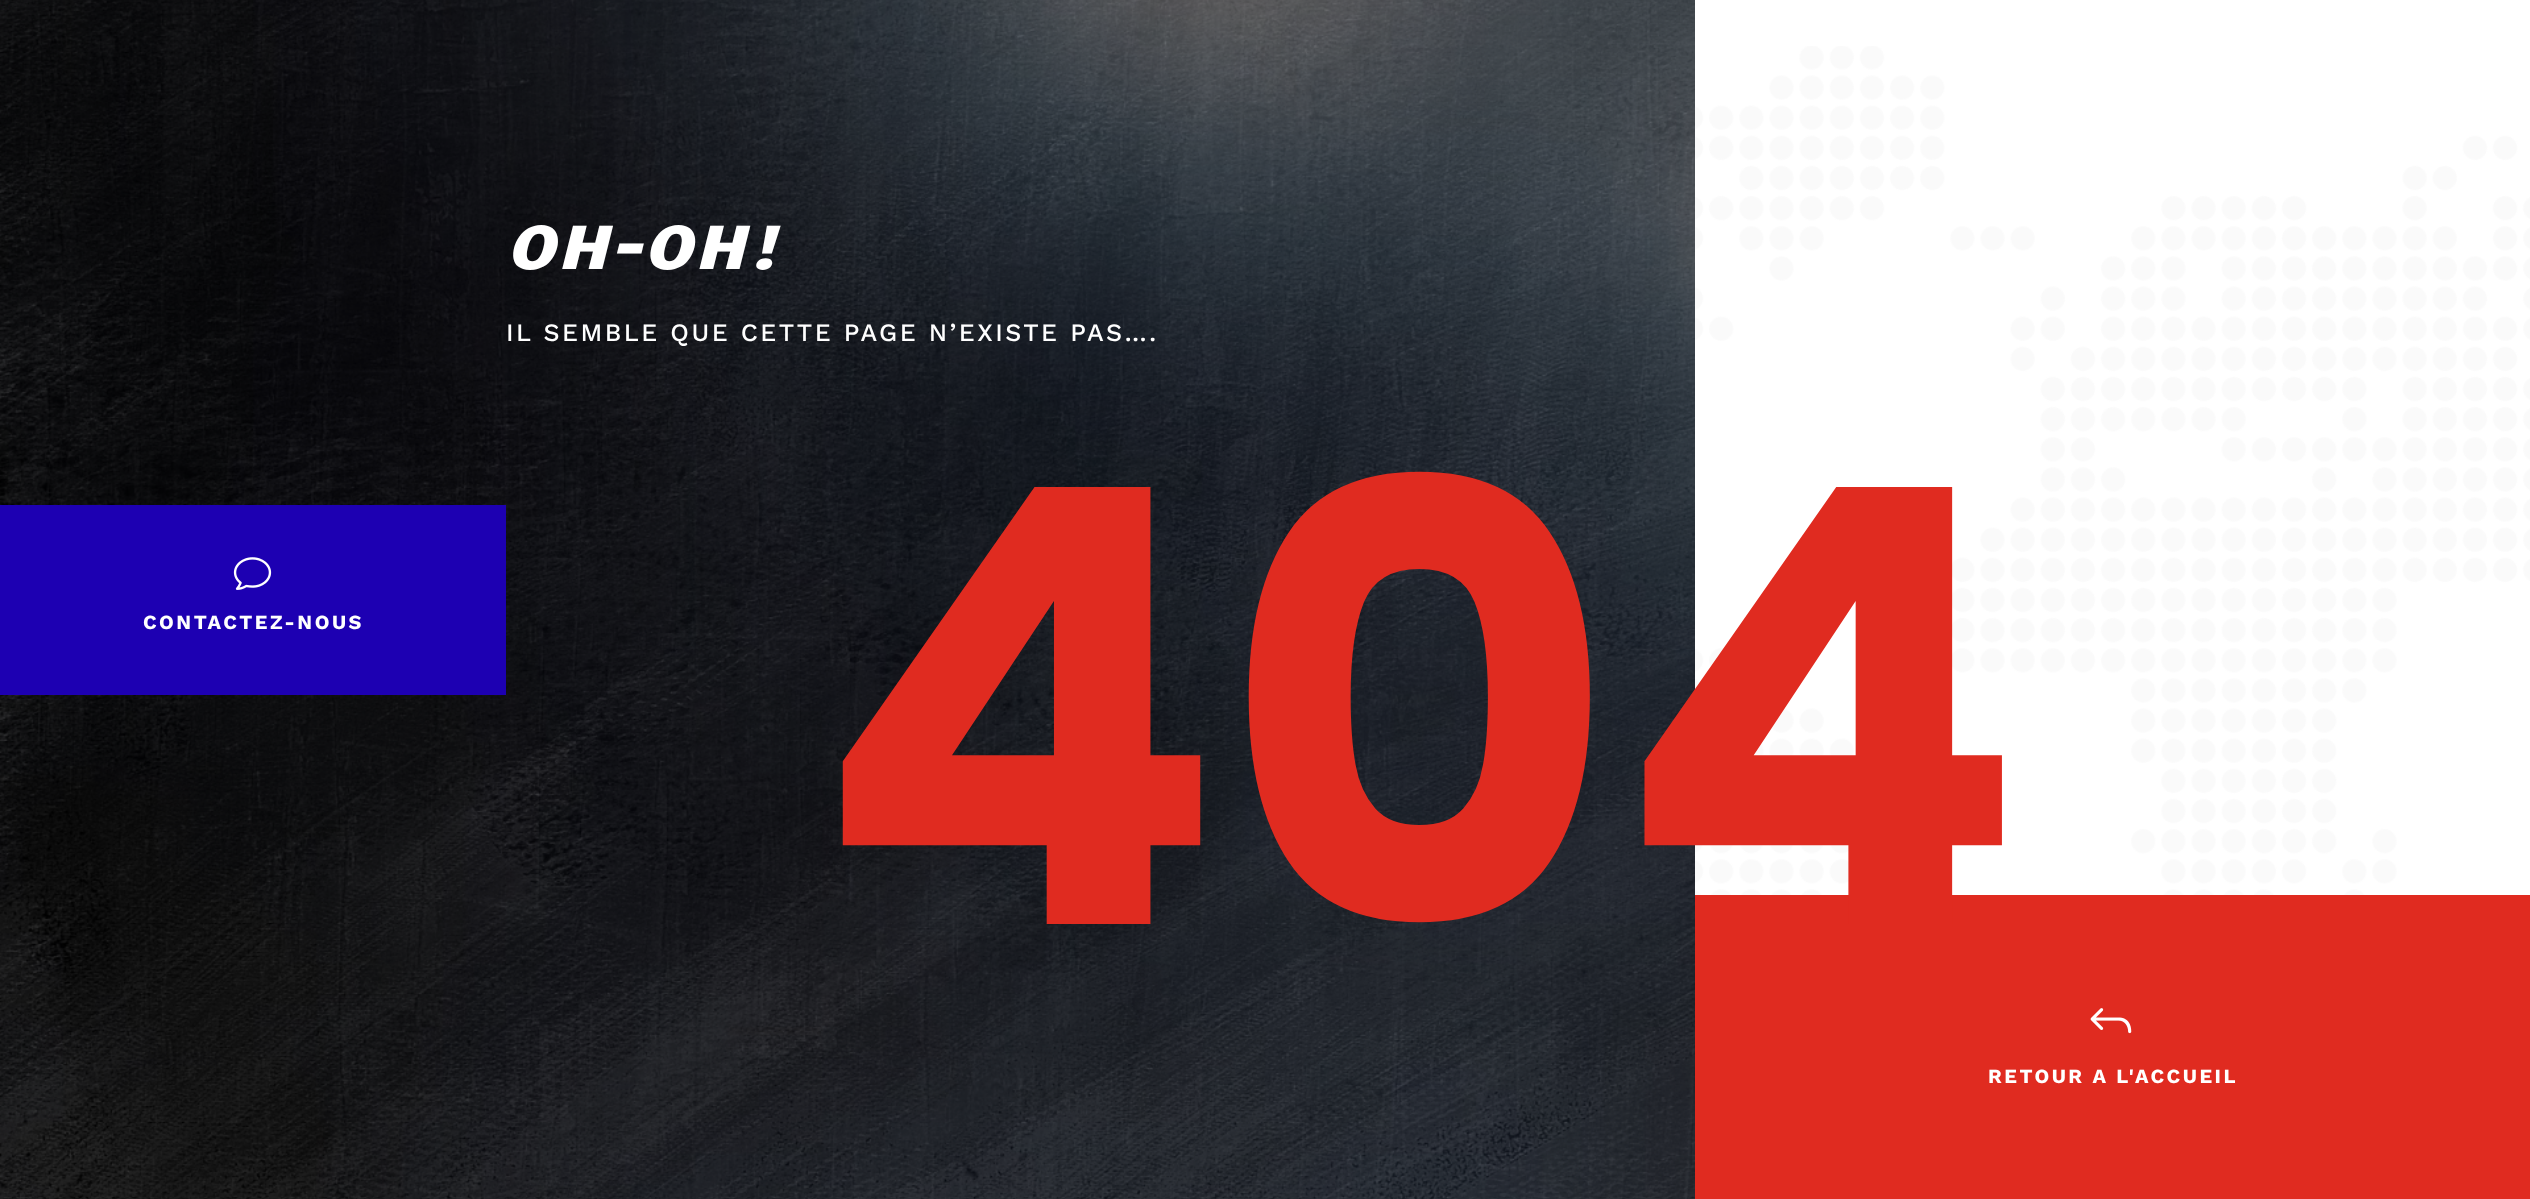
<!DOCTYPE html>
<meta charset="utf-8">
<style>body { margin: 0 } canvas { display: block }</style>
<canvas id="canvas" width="2530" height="1199"></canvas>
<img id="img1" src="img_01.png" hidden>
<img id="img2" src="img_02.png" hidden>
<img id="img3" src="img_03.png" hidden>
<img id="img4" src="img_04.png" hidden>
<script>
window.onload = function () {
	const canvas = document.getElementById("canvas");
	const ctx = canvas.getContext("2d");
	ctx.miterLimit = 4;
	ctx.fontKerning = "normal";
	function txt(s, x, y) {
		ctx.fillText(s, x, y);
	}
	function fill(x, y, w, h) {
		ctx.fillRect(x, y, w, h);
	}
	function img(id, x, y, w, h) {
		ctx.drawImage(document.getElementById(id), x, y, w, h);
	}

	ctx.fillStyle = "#FFFFFF";
	fill(0, 0, 2530, 1199);
	img("img1", 0, 0, 1695, 1199);
	ctx.fillStyle = "#1D00B2";
	fill(0, 505, 506, 190);
	img("img2", 233, 557, 39, 33);
	img("img3", 1695, 46, 835, 849);
	ctx.fillStyle = "#E02B20";
	fill(1695, 895, 835, 304);
	img("img4", 2090, 1008, 42, 26);
	ctx.letterSpacing = "2.5px";
	ctx.font = "bold 20px Work Sans";
	ctx.fillStyle = "#FFFFFF";
	txt("CONTACTEZ-NOUS", 143, 629);
	ctx.font = "italic 62.5px Candal";
	txt("OH-OH!", 506, 269);
	ctx.font = "500 25px Work Sans";
	txt("IL SEMBLE QUE CETTE PAGE N’EXISTE PAS….", 506, 341);
	ctx.letterSpacing = "-2.5px";
	ctx.font = "bold 607px Poppins";
	ctx.fillStyle = "#E02B20";
	txt("404", 813, 924);
	ctx.letterSpacing = "2.5px";
	ctx.font = "bold 20px Work Sans";
	ctx.fillStyle = "#FFFFFF";
	txt("RETOUR A L'ACCUEIL", 1988, 1083);
};
</script>
